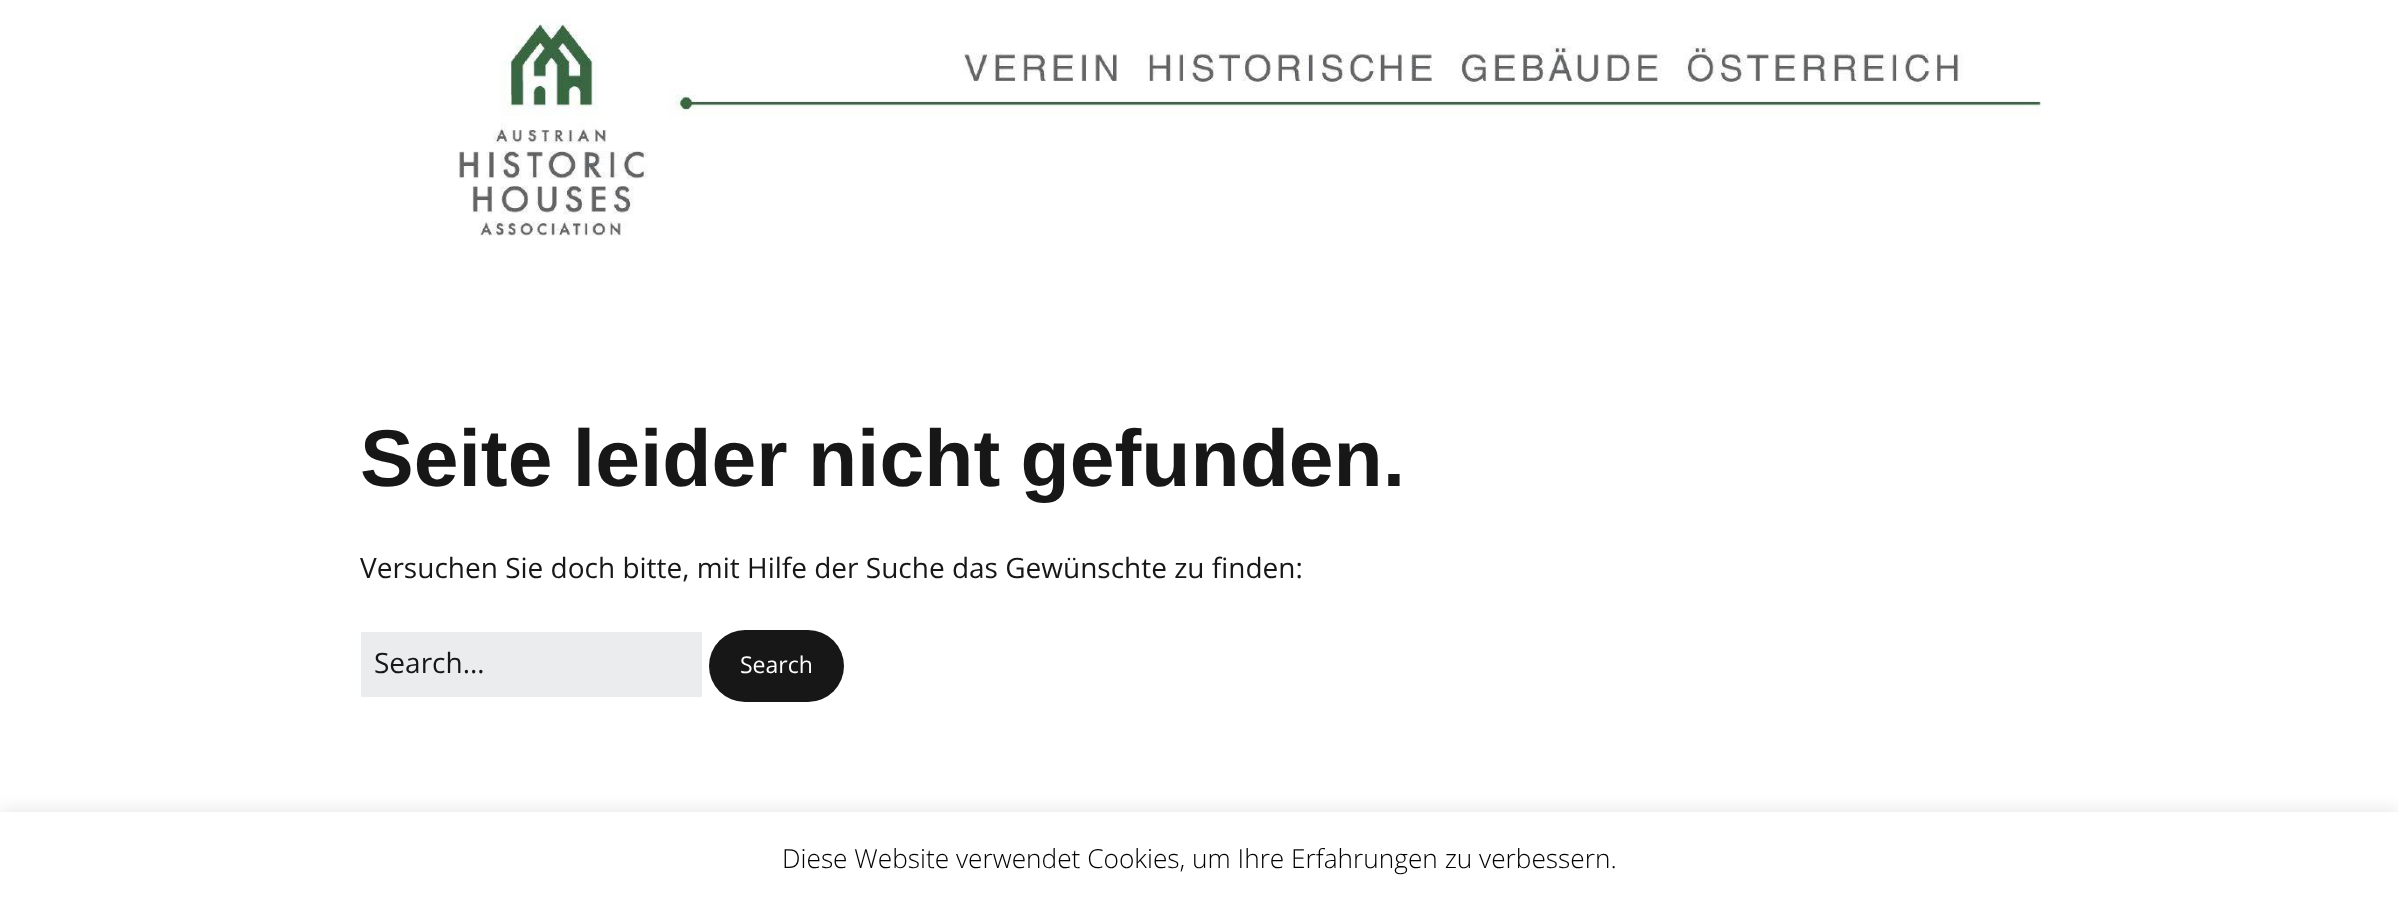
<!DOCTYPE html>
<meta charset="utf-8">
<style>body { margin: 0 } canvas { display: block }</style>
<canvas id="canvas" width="2398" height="899"></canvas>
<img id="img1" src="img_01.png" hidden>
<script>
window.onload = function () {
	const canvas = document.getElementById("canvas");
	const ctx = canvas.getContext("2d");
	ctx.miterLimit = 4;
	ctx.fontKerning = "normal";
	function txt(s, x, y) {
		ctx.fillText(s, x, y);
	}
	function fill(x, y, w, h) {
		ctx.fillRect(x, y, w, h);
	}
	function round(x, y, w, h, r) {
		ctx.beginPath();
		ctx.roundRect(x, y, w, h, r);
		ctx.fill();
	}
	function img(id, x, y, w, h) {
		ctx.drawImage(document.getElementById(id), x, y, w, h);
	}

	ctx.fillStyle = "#FFFFFF";
	fill(0, 0, 2398, 899);
	img("img1", 458, 18, 1583, 218);
	ctx.fillStyle = "#EAECEE";
	fill(361, 632, 341, 65);
	ctx.fillStyle = "#171717";
	round(709, 630, 135, 72, 36);
	ctx.fillStyle = "rgba(172, 171, 171, 0.3)";
	ctx.filter = "blur(9px)";
	ctx.beginPath();
	ctx.rect(0, 810, 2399, 88);
	ctx.fill();
	ctx.filter = "none";
	ctx.fillStyle = "#FFFFFF";
	fill(0, 812, 2398, 87);
	ctx.wordSpacing = "-2px";
	ctx.font = "bold 80.5px Liberation Sans";
	ctx.fillStyle = "#171717";
	txt("Seite leider nicht gefunden.", 360, 486);
	ctx.wordSpacing = "0px";
	ctx.font = "28px Open Sans";
	txt("Versuchen Sie doch bitte, mit Hilfe der Suche das Gewünschte zu finden:", 360, 578);
	txt("Search…", 374, 673);
	ctx.font = "23px Open Sans";
	ctx.fillStyle = "#FFFFFF";
	txt("Search", 740, 673);
	ctx.font = "300 26.25px Open Sans";
	ctx.fillStyle = "#000000";
	txt("Diese Website verwendet Cookies, um Ihre Erfahrungen zu verbessern.", 782, 868);
};
</script>
